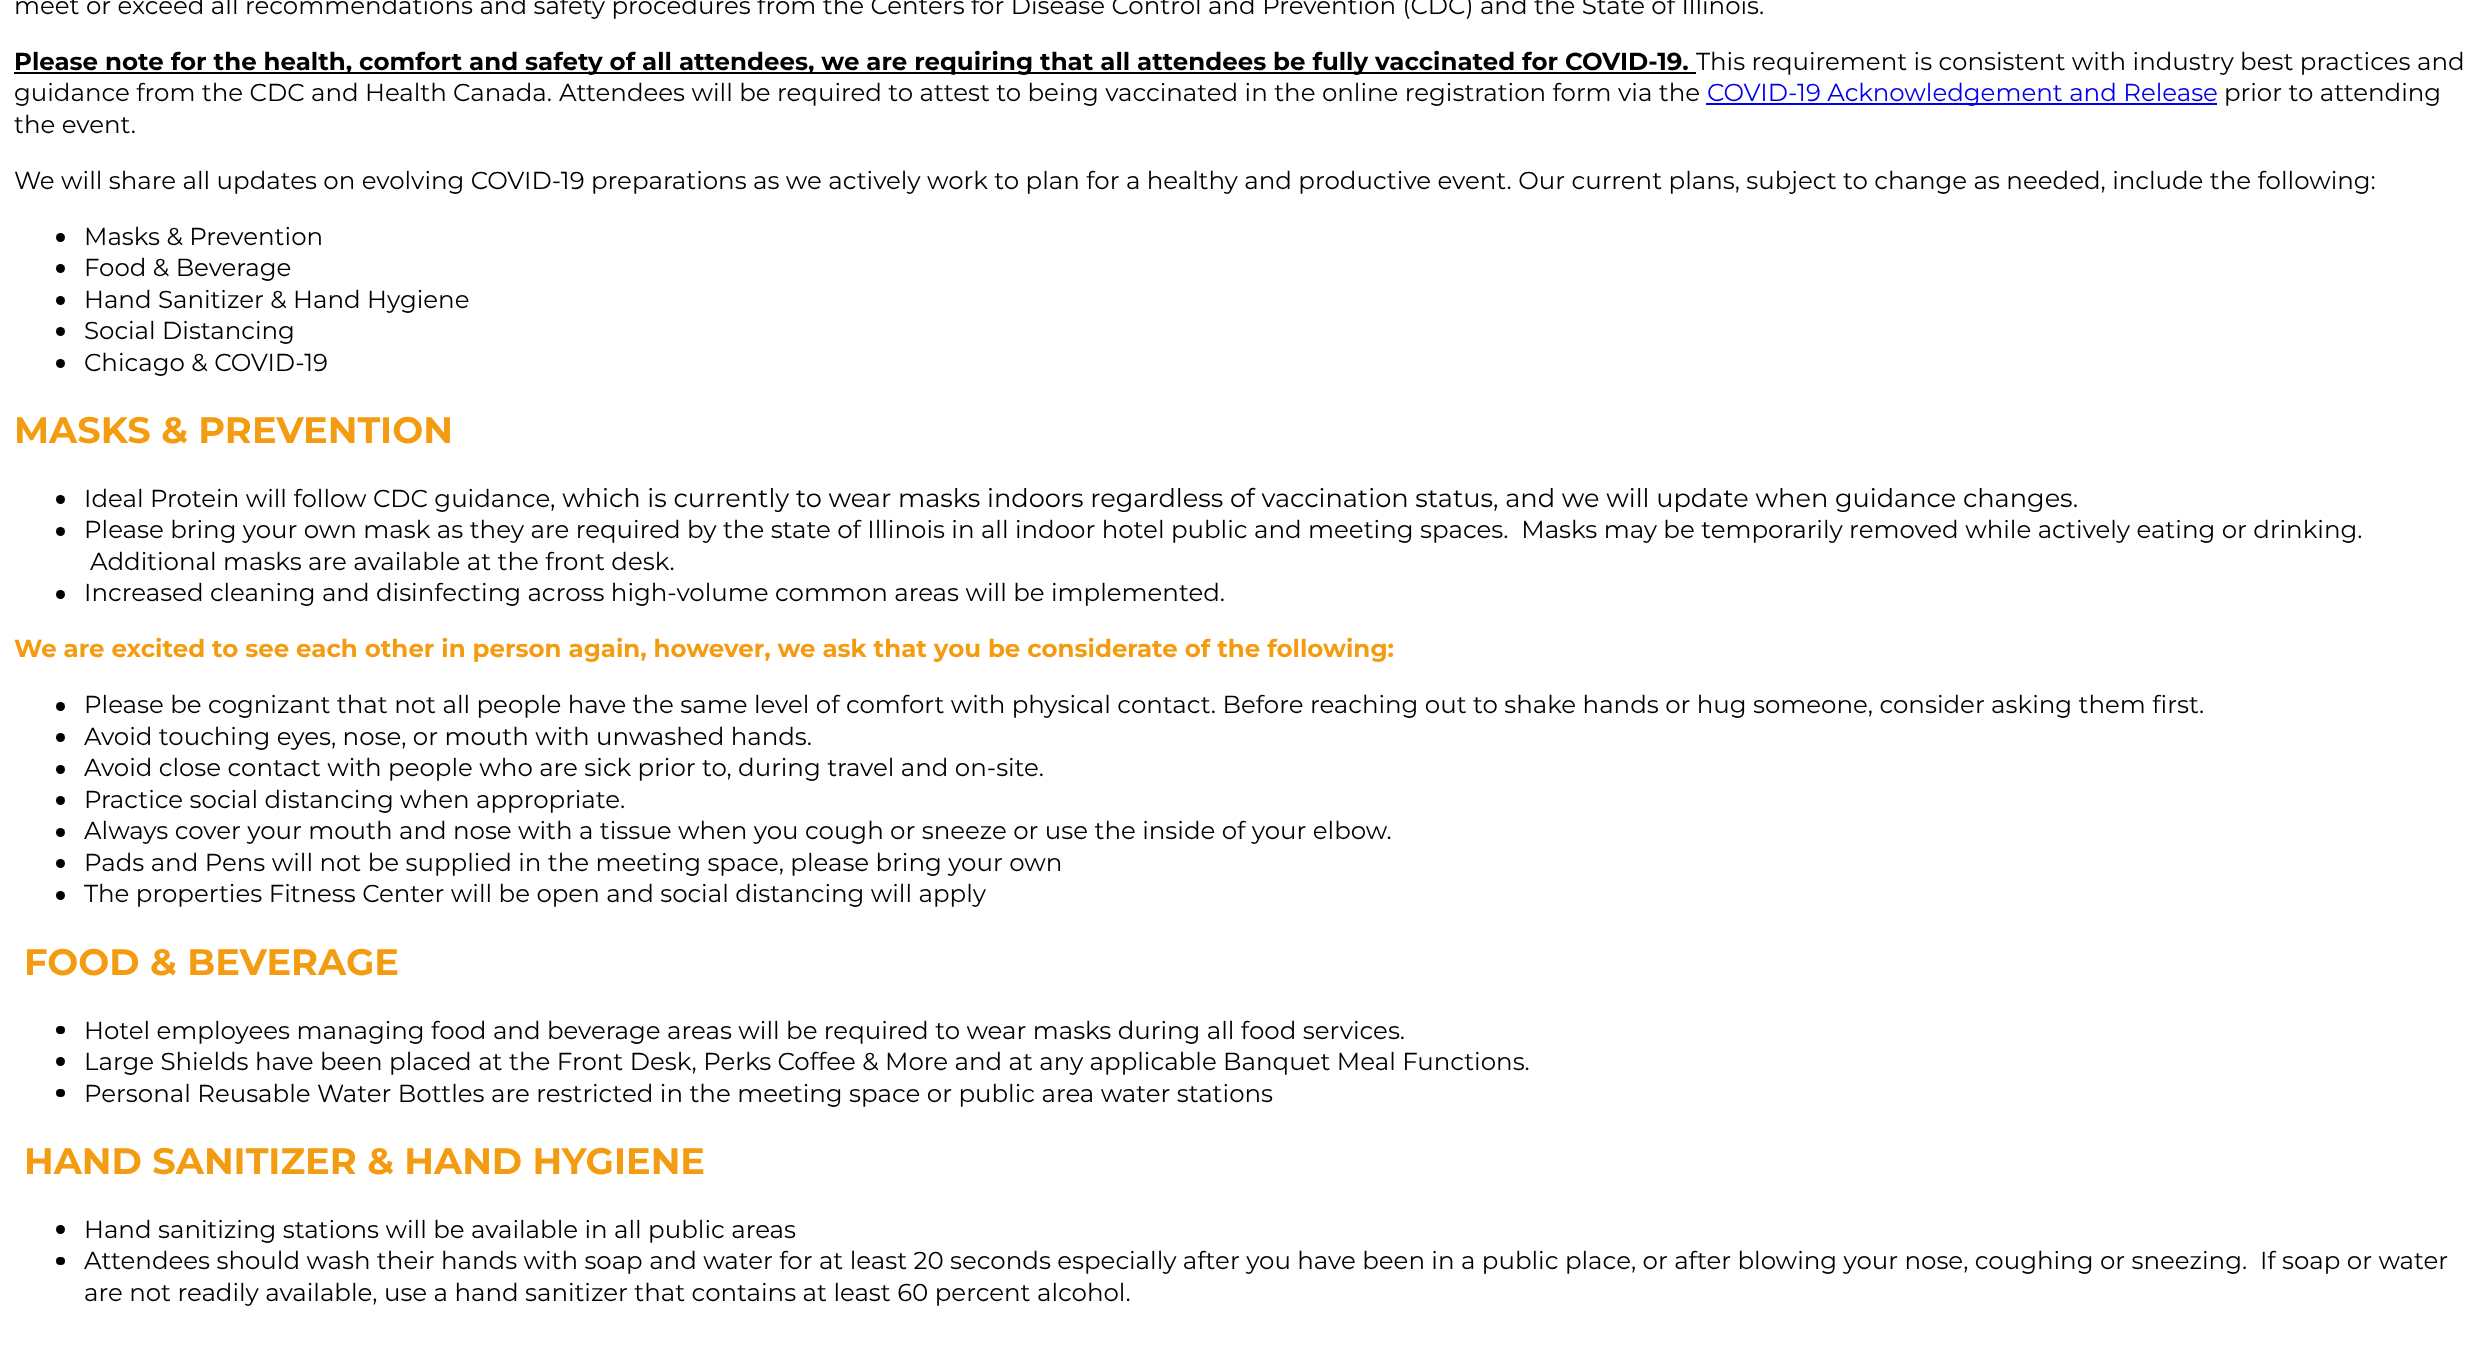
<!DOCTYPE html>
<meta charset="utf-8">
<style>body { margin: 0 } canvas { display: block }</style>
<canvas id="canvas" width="2490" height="1364"></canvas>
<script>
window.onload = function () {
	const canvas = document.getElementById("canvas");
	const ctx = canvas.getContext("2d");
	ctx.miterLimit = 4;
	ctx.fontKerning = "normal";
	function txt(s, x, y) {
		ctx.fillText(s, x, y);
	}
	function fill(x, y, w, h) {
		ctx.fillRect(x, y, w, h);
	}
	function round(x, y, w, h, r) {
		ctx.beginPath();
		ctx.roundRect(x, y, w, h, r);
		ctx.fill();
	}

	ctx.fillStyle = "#FFFFFF";
	fill(0, 0, 2490, 1364);
	ctx.fillStyle = "#000000";
	fill(14, 72, 1682, 2);
	ctx.fillStyle = "#0000EE";
	fill(1706, 103, 511, 2);
	ctx.fillStyle = "#000000";
	ctx.beginPath();
	ctx.arc(60.5, 237.5, 4.5, 0, Math.PI * 2);
	ctx.fill();
	ctx.beginPath();
	ctx.arc(60.5, 268.5, 4.5, 0, Math.PI * 2);
	ctx.fill();
	ctx.beginPath();
	ctx.arc(60.5, 300.5, 4.5, 0, Math.PI * 2);
	ctx.fill();
	ctx.beginPath();
	ctx.arc(60.5, 331.5, 4.5, 0, Math.PI * 2);
	ctx.fill();
	ctx.beginPath();
	ctx.arc(60.5, 363.5, 4.5, 0, Math.PI * 2);
	ctx.fill();
	ctx.beginPath();
	ctx.arc(60.5, 499.5, 4.5, 0, Math.PI * 2);
	ctx.fill();
	ctx.beginPath();
	ctx.arc(60.5, 531.5, 4.5, 0, Math.PI * 2);
	ctx.fill();
	ctx.beginPath();
	ctx.arc(60.5, 594.5, 4.5, 0, Math.PI * 2);
	ctx.fill();
	ctx.beginPath();
	ctx.arc(60.5, 706.5, 4.5, 0, Math.PI * 2);
	ctx.fill();
	ctx.beginPath();
	ctx.arc(60.5, 737.5, 4.5, 0, Math.PI * 2);
	ctx.fill();
	ctx.beginPath();
	ctx.arc(60.5, 769.5, 4.5, 0, Math.PI * 2);
	ctx.fill();
	ctx.beginPath();
	ctx.arc(60.5, 800.5, 4.5, 0, Math.PI * 2);
	ctx.fill();
	ctx.beginPath();
	ctx.arc(60.5, 832.5, 4.5, 0, Math.PI * 2);
	ctx.fill();
	ctx.beginPath();
	ctx.arc(60.5, 863.5, 4.5, 0, Math.PI * 2);
	ctx.fill();
	ctx.beginPath();
	ctx.arc(60.5, 895.5, 4.5, 0, Math.PI * 2);
	ctx.fill();
	round(56, 1026, 9, 8, 4);
	ctx.beginPath();
	ctx.arc(60.5, 1061.5, 4.5, 0, Math.PI * 2);
	ctx.fill();
	round(56, 1089, 9, 8, 4);
	ctx.beginPath();
	ctx.arc(60.5, 1229.5, 4.5, 0, Math.PI * 2);
	ctx.fill();
	round(56, 1257, 9, 8, 4);
	ctx.font = "24.5px Montserrat";
	txt("meet or exceed all recommendations and safety procedures from the Centers for Disease Control and Prevention (CDC) and the State of Illinois.", 14, 14);
	ctx.font = "bold 24.5px Montserrat";
	txt("Please note for the health, comfort and safety of all attendees, we are requiring that all attendees be fully vaccinated for COVID-19.", 14, 70);
	ctx.font = "24.5px Montserrat";
	txt("This requirement is consistent with industry best practices and", 1696, 70);
	txt("guidance from the CDC and Health Canada.", 14, 101);
	txt("Attendees will be required to attest to being vaccinated in the online registration form via the", 559, 101);
	ctx.fillStyle = "#0000EE";
	txt("COVID-19 Acknowledgement and Release", 1707, 101);
	ctx.fillStyle = "#000000";
	txt("prior to attending", 2224, 101);
	txt("the event.", 14, 133);
	txt("We will share all updates on evolving COVID-19 preparations as we actively work to plan for a healthy and productive event. Our current plans, subject to change as needed, include the following:", 14, 189);
	txt("Masks & Prevention", 84, 245);
	txt("Food & Beverage", 84, 276);
	txt("Hand Sanitizer & Hand Hygiene", 84, 308);
	txt("Social Distancing", 84, 339);
	txt("Chicago & COVID-19", 84, 371);
	ctx.font = "bold 36.75px Montserrat";
	ctx.fillStyle = "#F39C12";
	txt("MASKS & PREVENTION", 14, 443);
	ctx.font = "24.5px Montserrat";
	ctx.fillStyle = "#000000";
	txt("Ideal Protein will follow CDC guidance", 84, 507);
	ctx.font = "25.67px Montserrat";
	txt(", which is currently to wear masks indoors regardless of vaccination status, and we will update when guidance changes.", 550, 507);
	ctx.font = "24.5px Montserrat";
	txt("Please bring your own mask as they are required by the state of Illinois in all indoor hotel public and meeting spaces.  Masks may be temporarily removed while actively eating or drinking.", 84, 538);
	txt("Additional masks are available at the front desk.", 90, 570);
	txt("Increased cleaning and disinfecting across high-volume common areas will be implemented.", 84, 601);
	ctx.font = "bold 24.5px Montserrat";
	ctx.fillStyle = "#F39C12";
	txt("We are excited to see each other in person again, however, we ask that you be considerate of the following:", 14, 657);
	ctx.font = "24.5px Montserrat";
	ctx.fillStyle = "#000000";
	txt("Please be cognizant that not all people have the same level of comfort with physical contact. Before reaching out to shake hands or hug someone, consider asking them first.", 84, 713);
	txt("Avoid touching eyes, nose, or mouth with unwashed hands.", 84, 745);
	txt("Avoid close contact with people who are sick prior to, during travel and on-site.", 84, 776);
	txt("Practice social distancing when appropriate.", 84, 808);
	txt("Always cover your mouth and nose with a tissue when you cough or sneeze or use the inside of your elbow.", 84, 839);
	txt("Pads and Pens will not be supplied in the meeting space, please bring your own", 84, 871);
	txt("The properties Fitness Center will be open and social distancing will apply", 84, 902);
	ctx.font = "bold 36.75px Montserrat";
	ctx.fillStyle = "#F39C12";
	txt("FOOD & BEVERAGE", 24, 975);
	ctx.font = "24.5px Montserrat";
	ctx.fillStyle = "#000000";
	txt("Hotel employees managing food and beverage areas will be required to wear masks during all food services.", 84, 1039);
	txt("Large Shields have been placed at the Front Desk, Perks Coffee & More and at any applicable Banquet Meal Functions.", 84, 1070);
	txt("Personal Reusable Water Bottles are restricted in the meeting space or public area water stations", 84, 1102);
	ctx.font = "bold 36.75px Montserrat";
	ctx.fillStyle = "#F39C12";
	txt("HAND SANITIZER & HAND HYGIENE", 24, 1174);
	ctx.font = "24.5px Montserrat";
	ctx.fillStyle = "#000000";
	txt("Hand sanitizing stations will be available in all public areas", 84, 1238);
	txt("Attendees should wash their hands with soap and water for at least 20 seconds especially after you have been in a public place, or after blowing your nose, coughing or sneezing.  If soap or water", 84, 1269);
	txt("are not readily available, use a hand sanitizer that contains at least 60 percent alcohol.", 84, 1301);
};
</script>
